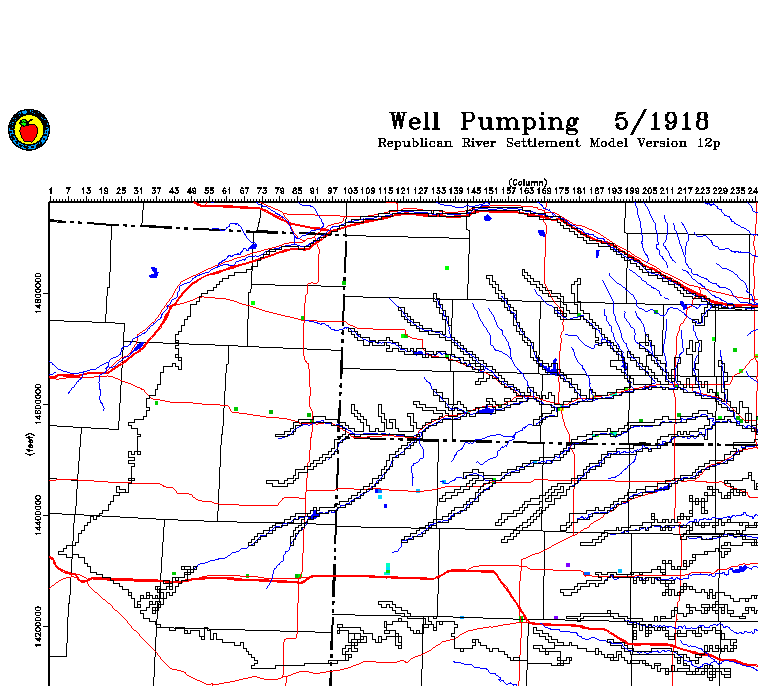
<!DOCTYPE html>
<meta charset="utf-8">
<style>body { margin: 0 } canvas { display: block }</style>
<canvas id="canvas" width="758" height="686"></canvas>
<img id="img1" src="img_01.png" hidden>
<script>
window.onload = function () {
	const canvas = document.getElementById("canvas");
	const ctx = canvas.getContext("2d");
	ctx.miterLimit = 4;
	ctx.fontKerning = "normal";
	function fill(x, y, w, h) {
		ctx.fillRect(x, y, w, h);
	}
	function img(id, x, y, w, h) {
		ctx.drawImage(document.getElementById(id), x, y, w, h);
	}

	ctx.fillStyle = "#FFFFFF";
	fill(0, 0, 758, 686);
	img("img1", 8, 109, 750, 577);
};
</script>
